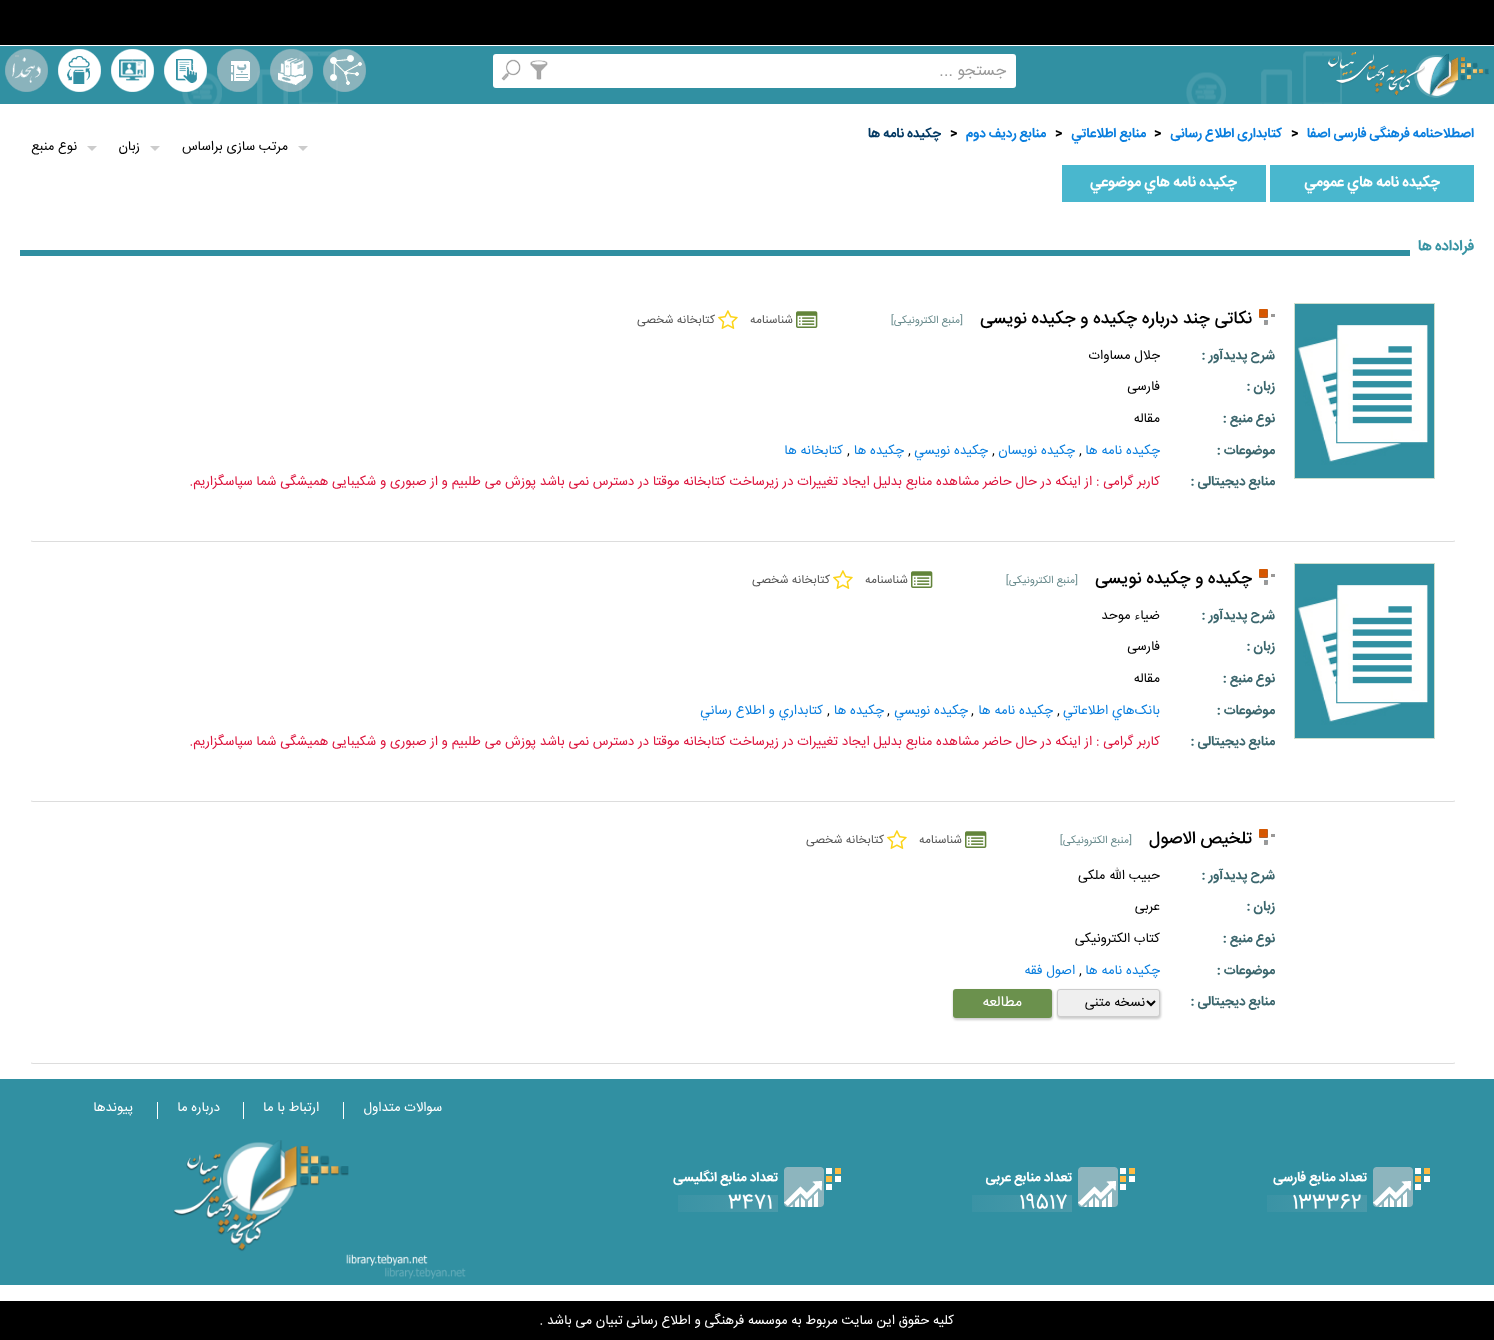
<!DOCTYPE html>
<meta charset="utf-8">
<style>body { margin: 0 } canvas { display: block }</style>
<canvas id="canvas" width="1494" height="1340"></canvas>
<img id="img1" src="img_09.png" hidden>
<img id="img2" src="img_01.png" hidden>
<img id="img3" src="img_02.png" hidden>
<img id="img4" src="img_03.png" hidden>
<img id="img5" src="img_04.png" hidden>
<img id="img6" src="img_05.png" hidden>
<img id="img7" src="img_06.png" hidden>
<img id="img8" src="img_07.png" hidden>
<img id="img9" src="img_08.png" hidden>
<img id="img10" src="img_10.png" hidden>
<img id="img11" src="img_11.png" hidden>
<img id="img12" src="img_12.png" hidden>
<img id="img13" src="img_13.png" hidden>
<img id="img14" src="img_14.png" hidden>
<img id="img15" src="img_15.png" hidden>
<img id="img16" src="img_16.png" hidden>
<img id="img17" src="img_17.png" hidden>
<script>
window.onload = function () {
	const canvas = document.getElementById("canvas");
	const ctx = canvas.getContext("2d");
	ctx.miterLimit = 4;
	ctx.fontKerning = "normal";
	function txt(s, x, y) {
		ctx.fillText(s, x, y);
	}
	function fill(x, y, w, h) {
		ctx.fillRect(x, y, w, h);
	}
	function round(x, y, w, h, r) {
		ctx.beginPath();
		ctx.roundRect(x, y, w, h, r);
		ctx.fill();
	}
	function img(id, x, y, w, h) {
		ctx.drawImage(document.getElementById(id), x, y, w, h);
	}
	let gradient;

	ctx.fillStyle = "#FFFFFF";
	fill(0, 0, 1494, 1340);
	ctx.fillStyle = "#000000";
	fill(0, 0, 1494, 45);
	ctx.fillStyle = "#3190A2";
	fill(0, 46, 1494, 58);
	img("img1", 182, 51, 1160, 53);
	img("img2", 323, 49, 43, 43);
	img("img3", 270, 49, 43, 43);
	img("img4", 217, 49, 43, 43);
	img("img5", 164, 49, 43, 43);
	img("img6", 111, 49, 43, 43);
	img("img7", 58, 49, 43, 43);
	img("img8", 5, 49, 43, 43);
	img("img9", 1328, 52, 161, 46);
	ctx.fillStyle = "#FFFFFF";
	round(493, 54, 523, 34, 3);
	img("img10", 530, 60, 18, 20);
	img("img11", 501, 59, 20, 22);
	ctx.fillStyle = "#CCCCCC";
	ctx.beginPath();
	ctx.moveTo(298, 146);
	ctx.lineTo(308, 146);
	ctx.lineTo(303, 151);
	ctx.closePath();
	ctx.fill();
	ctx.beginPath();
	ctx.moveTo(150, 146);
	ctx.lineTo(160, 146);
	ctx.lineTo(155, 151);
	ctx.closePath();
	ctx.fill();
	ctx.beginPath();
	ctx.moveTo(87, 146);
	ctx.lineTo(97, 146);
	ctx.lineTo(92, 151);
	ctx.closePath();
	ctx.fill();
	ctx.fillStyle = "#308FA1";
	fill(20, 250, 1390, 6);
	ctx.beginPath();
	ctx.moveTo(1455, 541);
	ctx.lineTo(1453, 541.5);
	ctx.lineTo(33, 541.5);
	ctx.lineTo(31, 541);
	ctx.strokeStyle = "#DDDDDD";
	ctx.stroke();
	ctx.strokeStyle = "#CCDDCC";
	ctx.strokeRect(1294.5, 303.5, 140, 175);
	img("img12", 1295, 304, 139, 174);
	img("img13", 1259, 309, 16, 16);
	img("img14", 796, 311, 22, 17);
	img("img15", 718, 310, 20, 19);
	ctx.beginPath();
	ctx.moveTo(1455, 801);
	ctx.lineTo(1453, 801.5);
	ctx.lineTo(33, 801.5);
	ctx.lineTo(31, 801);
	ctx.strokeStyle = "#DDDDDD";
	ctx.stroke();
	ctx.strokeStyle = "#CCDDCC";
	ctx.strokeRect(1294.5, 563.5, 140, 175);
	img("img12", 1295, 564, 139, 174);
	img("img13", 1259, 569, 16, 16);
	img("img14", 911, 571, 22, 17);
	img("img15", 833, 570, 20, 19);
	ctx.beginPath();
	ctx.moveTo(1455, 1063);
	ctx.lineTo(1453, 1063.5);
	ctx.lineTo(33, 1063.5);
	ctx.lineTo(31, 1063);
	ctx.strokeStyle = "#DDDDDD";
	ctx.stroke();
	img("img13", 1259, 829, 16, 16);
	img("img14", 965, 831, 22, 17);
	img("img15", 887, 830, 20, 19);
	ctx.fillStyle = "#CCCCCC";
	ctx.filter = "blur(1px)";
	ctx.beginPath();
	ctx.roundRect(1057, 990, 104, 29, 4);
	ctx.fill();
	ctx.filter = "none";
	ctx.fillStyle = "#EFEFEF";
	ctx.beginPath();
	ctx.roundRect(1057.5, 989.5, 102, 27, 2.5);
	ctx.fill();
	ctx.strokeStyle = "#CCCCCC";
	ctx.stroke();
	ctx.beginPath();
	ctx.moveTo(1147, 1001);
	ctx.lineTo(1151, 1005);
	ctx.lineTo(1155, 1001);
	ctx.strokeStyle = "#000000";
	ctx.lineWidth = 2;
	ctx.stroke();
	ctx.fillStyle = "#CCCCCC";
	ctx.filter = "blur(1px)";
	ctx.beginPath();
	ctx.roundRect(953, 990, 100, 30, 4);
	ctx.fill();
	ctx.filter = "none";
	ctx.fillStyle = "#6B914D";
	round(953, 989, 99, 29, 3);
	ctx.fillStyle = "#49B7CE";
	fill(1270, 165, 204, 37);
	fill(1062, 165, 204, 37);
	ctx.fillStyle = "#3190A2";
	fill(0, 1079, 1494, 206);
	ctx.fillStyle = "#FFFFFF";
	fill(343, 1102, 1, 17);
	fill(243, 1102, 1, 17);
	fill(157, 1102, 1, 17);
	img("img16", 173, 1140, 293, 139);
	img("img17", 1373, 1167, 57, 40);
	gradient = ctx.createLinearGradient(1267, 1195, 1467, 1207);
	gradient.addColorStop(0, "#3A93A5");
	gradient.addColorStop(1, "#5BA1AF");
	ctx.fillStyle = gradient;
	fill(1267, 1195, 100, 17);
	img("img17", 1078, 1167, 57, 40);
	gradient = ctx.createLinearGradient(972, 1195, 1172, 1207);
	gradient.addColorStop(0, "#3A93A5");
	gradient.addColorStop(1, "#5BA1AF");
	ctx.fillStyle = gradient;
	fill(972, 1195, 100, 17);
	img("img17", 784, 1167, 57, 40);
	gradient = ctx.createLinearGradient(678, 1195, 878, 1207);
	gradient.addColorStop(0, "#3A93A5");
	gradient.addColorStop(1, "#5BA1AF");
	ctx.fillStyle = gradient;
	fill(678, 1195, 100, 17);
	ctx.fillStyle = "#000000";
	fill(0, 1301, 1494, 39);
	ctx.direction = "rtl";
	ctx.font = "16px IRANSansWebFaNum";
	ctx.fillStyle = "#9A9A9A";
	txt("جستجو ...", 1006, 75);
	ctx.font = "bold 13.33px IRANSansWebFaNum";
	ctx.fillStyle = "#097EDE";
	txt("اصطلاحنامه فرهنگی فارسی اصفا", 1474, 137);
	ctx.direction = "ltr";
	ctx.fillStyle = "#000000";
	txt(">", 1291, 137);
	ctx.direction = "rtl";
	ctx.fillStyle = "#097EDE";
	txt("کتابداری اطلاع رسانی", 1282, 137);
	ctx.direction = "ltr";
	ctx.fillStyle = "#000000";
	txt(">", 1154, 137);
	ctx.direction = "rtl";
	ctx.fillStyle = "#097EDE";
	txt("منابع‌ اطلاعاتي‌", 1146, 137);
	ctx.direction = "ltr";
	ctx.fillStyle = "#000000";
	txt(">", 1055, 137);
	ctx.direction = "rtl";
	ctx.fillStyle = "#097EDE";
	txt("منابع‌ رديف‌ دوم‌", 1046, 137);
	ctx.direction = "ltr";
	ctx.fillStyle = "#000000";
	txt(">", 950, 137);
	ctx.direction = "rtl";
	ctx.fillStyle = "#023862";
	txt("چکيده‌ نامه‌ ها", 941, 137);
	ctx.font = "13.33px IRANSansWebFaNum";
	ctx.fillStyle = "#000000";
	txt("مرتب سازی براساس", 288, 150);
	txt("زبان", 140, 150);
	txt("نوع منبع", 77, 150);
	ctx.font = "bold 14.75px IRANSansWebFaNum";
	ctx.fillStyle = "#3793A3";
	txt("فراداده ها", 1474, 250);
	ctx.font = "500 17.3px IRANSansWebFaNum";
	ctx.fillStyle = "#000000";
	txt("نکاتی چند درباره چکیده و جکیده نویسی", 1252, 323);
	ctx.font = "10.75px IRANSansWebFaNum";
	ctx.fillStyle = "#688A8C";
	txt("[منبع الکترونیکی]", 963, 323);
	ctx.font = "12px IRANSansWebFaNum";
	ctx.fillStyle = "#565656";
	txt("شناسنامه", 793, 323);
	txt("کتابخانه شخصی", 715, 323);
	ctx.font = "bold 13.33px IRANSansWebFaNum";
	ctx.fillStyle = "#3B666D";
	txt("شرح پدیدآور :", 1275, 359);
	ctx.font = "13.33px IRANSansWebFaNum";
	ctx.fillStyle = "#000000";
	txt("جلال مساوات", 1160, 359);
	ctx.font = "bold 13.33px IRANSansWebFaNum";
	ctx.fillStyle = "#3B666D";
	txt("زبان :", 1275, 390);
	ctx.font = "13.33px IRANSansWebFaNum";
	ctx.fillStyle = "#000000";
	txt("فارسی", 1160, 390);
	ctx.font = "bold 13.33px IRANSansWebFaNum";
	ctx.fillStyle = "#3B666D";
	txt("نوع منبع :", 1275, 422);
	ctx.font = "13.33px IRANSansWebFaNum";
	ctx.fillStyle = "#000000";
	txt("مقاله", 1160, 422);
	ctx.font = "bold 13.33px IRANSansWebFaNum";
	ctx.fillStyle = "#3B666D";
	txt("موضوعات :", 1275, 454);
	ctx.font = "13.33px IRANSansWebFaNum";
	ctx.fillStyle = "#097EDE";
	txt("چکيده‌ نامه‌ ها", 1160, 454);
	ctx.direction = "ltr";
	ctx.fillStyle = "#000000";
	txt(",", 1079, 454);
	ctx.direction = "rtl";
	ctx.fillStyle = "#097EDE";
	txt("چکيده‌ نويسان‌", 1075, 454);
	ctx.direction = "ltr";
	ctx.fillStyle = "#000000";
	txt(",", 992, 454);
	ctx.direction = "rtl";
	ctx.fillStyle = "#097EDE";
	txt("چکيده‌ نويسي‌", 988, 454);
	ctx.direction = "ltr";
	ctx.fillStyle = "#000000";
	txt(",", 908, 454);
	ctx.direction = "rtl";
	ctx.fillStyle = "#097EDE";
	txt("چکيده‌ ها", 904, 454);
	ctx.direction = "ltr";
	ctx.fillStyle = "#000000";
	txt(",", 847, 454);
	ctx.direction = "rtl";
	ctx.fillStyle = "#097EDE";
	txt("کتابخانه‌ ها", 843, 454);
	ctx.font = "bold 13.33px IRANSansWebFaNum";
	ctx.fillStyle = "#3B666D";
	txt("منابع دیجیتالی :", 1275, 485);
	ctx.font = "13.33px IRANSansWebFaNum";
	ctx.fillStyle = "#DC143C";
	txt("کاربر گرامی :", 1160, 485);
	txt("از اینکه در حال حاضر مشاهده منابع بدلیل ایجاد تغییرات در زیرساخت کتابخانه موقتا در دسترس نمی باشد پوزش می طلبیم و از صبوری و شکیبایی همیشگی شما سپاسگزاریم.", 1092, 485);
	ctx.font = "500 17.3px IRANSansWebFaNum";
	ctx.fillStyle = "#000000";
	txt("چکیده و چکیده نویسی", 1252, 583);
	ctx.font = "10.75px IRANSansWebFaNum";
	ctx.fillStyle = "#688A8C";
	txt("[منبع الکترونیکی]", 1078, 583);
	ctx.font = "12px IRANSansWebFaNum";
	ctx.fillStyle = "#565656";
	txt("شناسنامه", 908, 583);
	txt("کتابخانه شخصی", 830, 583);
	ctx.font = "bold 13.33px IRANSansWebFaNum";
	ctx.fillStyle = "#3B666D";
	txt("شرح پدیدآور :", 1275, 619);
	ctx.font = "13.33px IRANSansWebFaNum";
	ctx.fillStyle = "#000000";
	txt("ضیاء موحد", 1160, 619);
	ctx.font = "bold 13.33px IRANSansWebFaNum";
	ctx.fillStyle = "#3B666D";
	txt("زبان :", 1275, 650);
	ctx.font = "13.33px IRANSansWebFaNum";
	ctx.fillStyle = "#000000";
	txt("فارسی", 1160, 650);
	ctx.font = "bold 13.33px IRANSansWebFaNum";
	ctx.fillStyle = "#3B666D";
	txt("نوع منبع :", 1275, 682);
	ctx.font = "13.33px IRANSansWebFaNum";
	ctx.fillStyle = "#000000";
	txt("مقاله", 1160, 682);
	ctx.font = "bold 13.33px IRANSansWebFaNum";
	ctx.fillStyle = "#3B666D";
	txt("موضوعات :", 1275, 714);
	ctx.font = "13.33px IRANSansWebFaNum";
	ctx.fillStyle = "#097EDE";
	txt("بانک‌هاي‌ اطلاعاتي‌", 1160, 714);
	ctx.direction = "ltr";
	ctx.fillStyle = "#000000";
	txt(",", 1057, 714);
	ctx.direction = "rtl";
	ctx.fillStyle = "#097EDE";
	txt("چکيده‌ نامه‌ ها", 1053, 714);
	ctx.direction = "ltr";
	ctx.fillStyle = "#000000";
	txt(",", 971, 714);
	ctx.direction = "rtl";
	ctx.fillStyle = "#097EDE";
	txt("چکيده‌ نويسي‌", 968, 714);
	ctx.direction = "ltr";
	ctx.fillStyle = "#000000";
	txt(",", 887, 714);
	ctx.direction = "rtl";
	ctx.fillStyle = "#097EDE";
	txt("چکيده‌ ها", 884, 714);
	ctx.direction = "ltr";
	ctx.fillStyle = "#000000";
	txt(",", 827, 714);
	ctx.direction = "rtl";
	ctx.fillStyle = "#097EDE";
	txt("کتابداري‌ و اطلاع‌ رساني‌", 823, 714);
	ctx.font = "bold 13.33px IRANSansWebFaNum";
	ctx.fillStyle = "#3B666D";
	txt("منابع دیجیتالی :", 1275, 745);
	ctx.font = "13.33px IRANSansWebFaNum";
	ctx.fillStyle = "#DC143C";
	txt("کاربر گرامی :", 1160, 745);
	txt("از اینکه در حال حاضر مشاهده منابع بدلیل ایجاد تغییرات در زیرساخت کتابخانه موقتا در دسترس نمی باشد پوزش می طلبیم و از صبوری و شکیبایی همیشگی شما سپاسگزاریم.", 1092, 745);
	ctx.font = "500 17.3px IRANSansWebFaNum";
	ctx.fillStyle = "#000000";
	txt("تلخیص الاصول", 1252, 843);
	ctx.font = "10.75px IRANSansWebFaNum";
	ctx.fillStyle = "#688A8C";
	txt("[منبع الکترونیکی]", 1132, 843);
	ctx.font = "12px IRANSansWebFaNum";
	ctx.fillStyle = "#565656";
	txt("شناسنامه", 962, 843);
	txt("کتابخانه شخصی", 884, 843);
	ctx.font = "bold 13.33px IRANSansWebFaNum";
	ctx.fillStyle = "#3B666D";
	txt("شرح پدیدآور :", 1275, 879);
	ctx.font = "13.33px IRANSansWebFaNum";
	ctx.fillStyle = "#000000";
	txt("حبیب الله ملکی", 1160, 879);
	ctx.font = "bold 13.33px IRANSansWebFaNum";
	ctx.fillStyle = "#3B666D";
	txt("زبان :", 1275, 910);
	ctx.font = "13.33px IRANSansWebFaNum";
	ctx.fillStyle = "#000000";
	txt("عربی", 1160, 910);
	ctx.font = "bold 13.33px IRANSansWebFaNum";
	ctx.fillStyle = "#3B666D";
	txt("نوع منبع :", 1275, 942);
	ctx.font = "13.33px IRANSansWebFaNum";
	ctx.fillStyle = "#000000";
	txt("کتاب الکترونیکی", 1160, 942);
	ctx.font = "bold 13.33px IRANSansWebFaNum";
	ctx.fillStyle = "#3B666D";
	txt("موضوعات :", 1275, 974);
	ctx.font = "13.33px IRANSansWebFaNum";
	ctx.fillStyle = "#097EDE";
	txt("چکيده‌ نامه‌ ها", 1160, 974);
	ctx.direction = "ltr";
	ctx.fillStyle = "#000000";
	txt(",", 1079, 974);
	ctx.direction = "rtl";
	ctx.fillStyle = "#097EDE";
	txt("اصول فقه", 1075, 974);
	ctx.font = "bold 13.33px IRANSansWebFaNum";
	ctx.fillStyle = "#3B666D";
	txt("منابع دیجیتالی :", 1275, 1005);
	ctx.font = "13.33px IRANSansWebFaNum";
	ctx.fillStyle = "#000000";
	txt("نسخه متنی", 1145, 1006);
	ctx.font = "14.75px IRANSansWebFaNum";
	ctx.fillStyle = "#FFFFFF";
	txt("مطالعه", 1022, 1006);
	ctx.font = "bold 14.75px IRANSansWebFaNum";
	txt("چکيده‌ نامه‌ هاي‌ عمومي‌", 1440, 186);
	txt("چکيده‌ نامه‌ هاي‌ موضوعي‌", 1237, 186);
	ctx.font = "13.33px IRANSansWebFaNum";
	txt("سوالات متداول", 442, 1111);
	txt("ارتباط", 319, 1111);
	txt("با ما", 285, 1111);
	txt("درباره ما", 220, 1111);
	txt("پیوندها", 133, 1111);
	ctx.font = "bold 13.33px IRANSansWebFaNum";
	txt("تعداد منابع فارسی", 1367, 1181);
	ctx.direction = "ltr";
	ctx.font = "20px IRANSansWebFaNum";
	txt("133362", 1292, 1208);
	ctx.direction = "rtl";
	ctx.font = "bold 13.33px IRANSansWebFaNum";
	txt("تعداد منابع عربی", 1072, 1181);
	ctx.direction = "ltr";
	ctx.font = "20px IRANSansWebFaNum";
	txt("19517", 1019, 1208);
	ctx.direction = "rtl";
	ctx.font = "bold 13.33px IRANSansWebFaNum";
	txt("تعداد منابع انگلیسی", 778, 1181);
	ctx.direction = "ltr";
	ctx.font = "20px IRANSansWebFaNum";
	txt("3471", 728, 1208);
	ctx.direction = "rtl";
	ctx.font = "13.33px IRANSansWebFaNum";
	txt("کلیه حقوق این سایت مربوط به موسسه فرهنگی و اطلاع رسانی تبیان می باشد .", 954, 1324);
};
</script>
